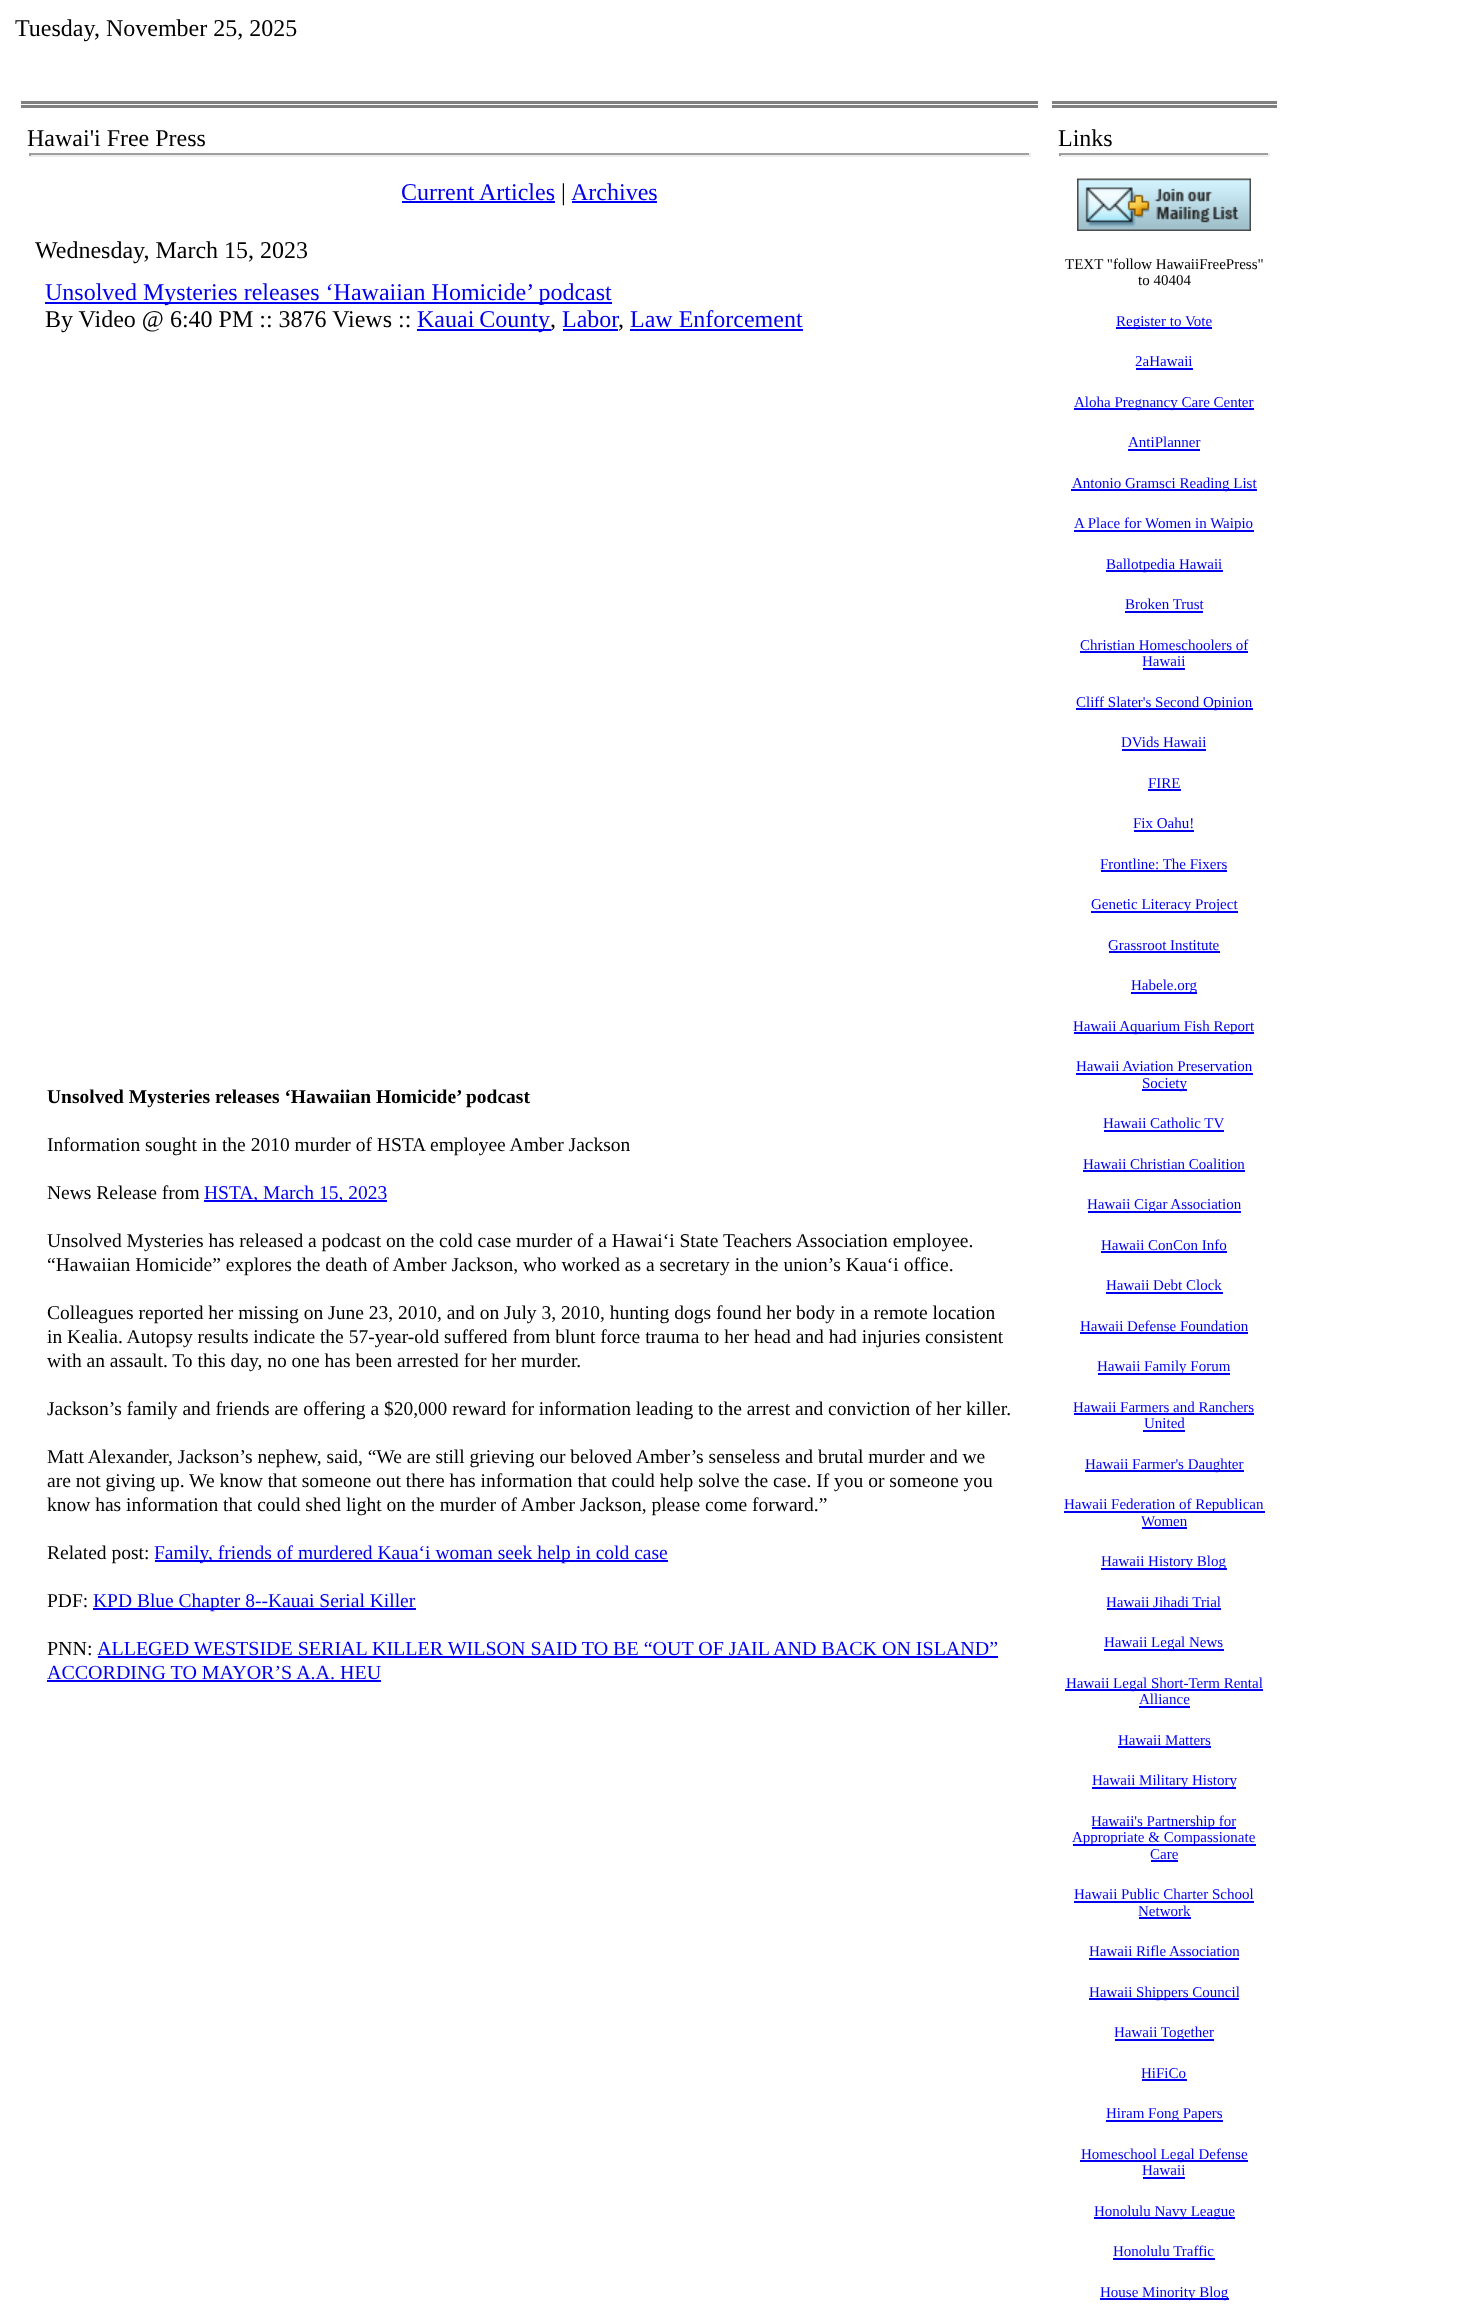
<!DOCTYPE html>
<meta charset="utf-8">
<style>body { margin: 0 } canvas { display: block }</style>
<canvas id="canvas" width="1460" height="2307"></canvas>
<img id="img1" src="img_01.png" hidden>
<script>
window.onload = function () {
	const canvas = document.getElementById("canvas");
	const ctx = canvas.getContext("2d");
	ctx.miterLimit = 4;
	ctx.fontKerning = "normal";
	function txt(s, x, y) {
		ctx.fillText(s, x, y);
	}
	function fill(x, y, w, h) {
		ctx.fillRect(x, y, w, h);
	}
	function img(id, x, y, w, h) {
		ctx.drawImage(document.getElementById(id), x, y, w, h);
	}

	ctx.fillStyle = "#FFFFFF";
	fill(0, 0, 1460, 2307);
	ctx.fillStyle = "#808080";
	fill(21, 101, 1017, 3);
	fill(21, 105, 1017, 3);
	ctx.fillStyle = "#9F9F9F";
	fill(29, 153, 1002, 2);
	ctx.fillStyle = "#EEEEEE";
	fill(1029, 153, 2, 3);
	fill(29, 155, 1002, 2);
	ctx.fillStyle = "#9F9F9F";
	fill(29, 153, 2, 3);
	ctx.fillStyle = "#0000EE";
	fill(402, 201, 153, 2);
	fill(572, 201, 85, 2);
	fill(45, 302, 567, 2);
	fill(417, 329, 134, 2);
	fill(563, 329, 55, 2);
	fill(630, 329, 173, 2);
	fill(204, 1200, 183, 2);
	fill(155, 1560, 513, 2);
	fill(93, 1608, 323, 2);
	fill(98, 1656, 900, 2);
	fill(47, 1680, 334, 2);
	ctx.fillStyle = "#808080";
	fill(1052, 101, 225, 3);
	fill(1052, 105, 225, 3);
	ctx.fillStyle = "#9F9F9F";
	fill(1059, 153, 210, 2);
	ctx.fillStyle = "#EEEEEE";
	fill(1268, 153, 2, 3);
	fill(1059, 155, 210, 2);
	ctx.fillStyle = "#9F9F9F";
	fill(1059, 153, 2, 3);
	img("img1", 1077, 178, 174, 53);
	ctx.fillStyle = "#0000EE";
	fill(1116, 327, 96, 2);
	fill(1136, 368, 57, 2);
	fill(1074, 408, 180, 2);
	fill(1128, 449, 72, 2);
	fill(1071, 489, 186, 2);
	fill(1074, 530, 180, 2);
	fill(1106, 570, 117, 2);
	fill(1125, 611, 78, 2);
	fill(1080, 651, 168, 2);
	fill(1143, 668, 42, 2);
	fill(1076, 708, 177, 2);
	fill(1122, 749, 84, 2);
	fill(1148, 789, 33, 2);
	fill(1134, 830, 60, 2);
	fill(1101, 870, 126, 2);
	fill(1091, 911, 147, 2);
	fill(1109, 951, 111, 2);
	fill(1131, 992, 66, 2);
	fill(1074, 1032, 180, 2);
	fill(1076, 1073, 177, 2);
	fill(1142, 1089, 45, 2);
	fill(1104, 1130, 120, 2);
	fill(1083, 1170, 162, 2);
	fill(1088, 1211, 153, 2);
	fill(1101, 1251, 126, 2);
	fill(1106, 1292, 117, 2);
	fill(1080, 1332, 168, 2);
	fill(1098, 1373, 132, 2);
	fill(1074, 1413, 180, 2);
	fill(1143, 1430, 42, 2);
	fill(1085, 1470, 159, 2);
	fill(1064, 1511, 201, 2);
	fill(1142, 1527, 45, 2);
	fill(1101, 1568, 126, 2);
	fill(1107, 1608, 114, 2);
	fill(1104, 1649, 120, 2);
	fill(1065, 1689, 198, 2);
	fill(1139, 1706, 51, 2);
	fill(1118, 1746, 93, 2);
	fill(1092, 1787, 144, 2);
	fill(1092, 1827, 144, 2);
	fill(1073, 1844, 183, 2);
	fill(1151, 1860, 27, 2);
	fill(1074, 1901, 180, 2);
	fill(1139, 1917, 52, 2);
	fill(1089, 1958, 150, 2);
	fill(1089, 1998, 150, 2);
	fill(1115, 2039, 99, 2);
	fill(1142, 2079, 45, 2);
	fill(1106, 2120, 117, 2);
	fill(1080, 2160, 168, 2);
	fill(1143, 2177, 42, 2);
	fill(1094, 2217, 141, 2);
	fill(1113, 2258, 102, 2);
	fill(1100, 2298, 129, 2);
	ctx.font = "24px Liberation Serif";
	ctx.fillStyle = "#000000";
	txt("Tuesday, November 25, 2025", 15, 36);
	txt("Hawai'i Free Press", 27, 146);
	ctx.fillStyle = "#0000EE";
	txt("Current", 401, 200);
	txt("Articles", 479, 200);
	ctx.fillStyle = "#000000";
	txt("|", 561, 200);
	ctx.fillStyle = "#0000EE";
	txt("Archives", 571, 200);
	ctx.fillStyle = "#000000";
	txt("Wednesday, March 15, 2023", 35, 258);
	ctx.fillStyle = "#0000EE";
	txt("Unsolved Mysteries releases ‘Hawaiian Homicide’ podcast", 45, 300);
	ctx.fillStyle = "#000000";
	txt("By Video @ 6:40 PM :: 3876 Views ::", 45, 327);
	ctx.wordSpacing = "-1px";
	ctx.fillStyle = "#0000EE";
	txt("Kauai County", 417, 327);
	ctx.wordSpacing = "0px";
	ctx.fillStyle = "#000000";
	txt(",", 550, 327);
	ctx.fillStyle = "#0000EE";
	txt("Labor", 562, 327);
	ctx.fillStyle = "#000000";
	txt(",", 618, 327);
	ctx.fillStyle = "#0000EE";
	txt("Law Enforcement", 630, 327);
	ctx.font = "bold 19.5px Liberation Serif";
	ctx.fillStyle = "#000000";
	txt("Unsolved Mysteries releases ‘Hawaiian Homicide’ podcast", 47, 1103);
	ctx.font = "19.5px Liberation Serif";
	txt("Information sought in the 2010 murder of HSTA employee Amber Jackson", 47, 1151);
	txt("News Release from", 47, 1199);
	ctx.fillStyle = "#0000EE";
	txt("HSTA, March 15, 2023", 204, 1199);
	ctx.fillStyle = "#000000";
	txt("Unsolved Mysteries has released a podcast on the cold case murder of a Hawaiʻi State Teachers Association employee.", 47, 1247);
	txt("“Hawaiian Homicide” explores the death of Amber Jackson, who worked as a secretary in the union’s Kauaʻi office.", 47, 1271);
	txt("Colleagues reported her missing on June 23, 2010, and on July 3, 2010, hunting dogs found her body in a remote location", 47, 1319);
	txt("in Kealia. Autopsy results indicate the 57-year-old suffered from blunt force trauma to her head and had injuries consistent", 47, 1343);
	txt("with an assault. To this day, no one has been arrested for her murder.", 47, 1367);
	txt("Jackson’s family and friends are offering a $20,000 reward for information leading to the arrest and conviction of her killer.", 47, 1415);
	txt("Matt Alexander, Jackson’s nephew, said, “We are still grieving our beloved Amber’s senseless and brutal murder and we", 47, 1463);
	txt("are not giving up. We know that someone out there has information that could help solve the case. If you or someone you", 47, 1487);
	txt("know has information that could shed light on the murder of Amber Jackson, please come forward.”", 47, 1511);
	txt("Related post:", 47, 1559);
	ctx.fillStyle = "#0000EE";
	txt("Family, friends of murdered Kauaʻi woman seek help in cold case", 154, 1559);
	ctx.fillStyle = "#000000";
	txt("PDF:", 47, 1607);
	ctx.fillStyle = "#0000EE";
	txt("KPD Blue Chapter 8--Kauai Serial Killer", 93, 1607);
	ctx.font = "20px Liberation Serif";
	ctx.fillStyle = "#000000";
	txt("PNN:", 47, 1655);
	ctx.fillStyle = "#0000EE";
	txt("ALLEGED WESTSIDE SERIAL KILLER WILSON SAID TO BE “OUT OF JAIL AND BACK ON ISLAND”", 97, 1655);
	txt("ACCORDING TO MAYOR’S A.A. HEU", 47, 1679);
	ctx.font = "24px Liberation Serif";
	ctx.fillStyle = "#000000";
	txt("Links", 1058, 146);
	ctx.font = "15px Liberation Serif";
	txt("TEXT \"follow HawaiiFreePress\"", 1065, 269);
	txt("to 40404", 1138, 285);
	ctx.fillStyle = "#0000EE";
	txt("Register to Vote", 1116, 326);
	txt("2aHawaii", 1135, 366);
	txt("Aloha Pregnancy Care Center", 1074, 407);
	txt("AntiPlanner", 1128, 447);
	txt("Antonio Gramsci Reading List", 1072, 488);
	txt("A Place for Women in Waipio", 1074, 528);
	txt("Ballotpedia Hawaii", 1106, 569);
	txt("Broken Trust", 1125, 609);
	txt("Christian Homeschoolers of", 1080, 650);
	txt("Hawaii", 1142, 666);
	txt("Cliff Slater's Second Opinion", 1076, 707);
	txt("DVids Hawaii", 1121, 747);
	txt("FIRE", 1148, 788);
	txt("Fix Oahu!", 1133, 828);
	txt("Frontline: The Fixers", 1100, 869);
	txt("Genetic Literacy Project", 1091, 909);
	txt("Grassroot Institute", 1108, 950);
	txt("Habele.org", 1131, 990);
	txt("Hawaii Aquarium Fish Report", 1073, 1031);
	txt("Hawaii Aviation Preservation", 1076, 1071);
	txt("Society", 1142, 1088);
	txt("Hawaii Catholic TV", 1103, 1128);
	txt("Hawaii Christian Coalition", 1083, 1169);
	txt("Hawaii Cigar Association", 1087, 1209);
	txt("Hawaii ConCon Info", 1101, 1250);
	txt("Hawaii Debt Clock", 1106, 1290);
	txt("Hawaii Defense Foundation", 1080, 1331);
	txt("Hawaii Family Forum", 1097, 1371);
	txt("Hawaii Farmers and Ranchers", 1073, 1412);
	txt("United", 1144, 1428);
	txt("Hawaii Farmer's Daughter", 1085, 1469);
	txt("Hawaii Federation of Republican", 1064, 1509);
	txt("Women", 1141, 1526);
	txt("Hawaii History Blog", 1101, 1566);
	txt("Hawaii Jihadi Trial", 1106, 1607);
	txt("Hawaii Legal News", 1104, 1647);
	txt("Hawaii Legal Short-Term Rental", 1066, 1688);
	txt("Alliance", 1139, 1704);
	txt("Hawaii Matters", 1118, 1745);
	txt("Hawaii Military History", 1092, 1785);
	txt("Hawaii's Partnership for", 1091, 1826);
	txt("Appropriate & Compassionate", 1072, 1842);
	txt("Care", 1150, 1859);
	txt("Hawaii Public Charter School", 1074, 1899);
	txt("Network", 1138, 1916);
	txt("Hawaii Rifle Association", 1089, 1956);
	txt("Hawaii Shippers Council", 1089, 1997);
	txt("Hawaii Together", 1114, 2037);
	txt("HiFiCo", 1141, 2078);
	txt("Hiram Fong Papers", 1106, 2118);
	txt("Homeschool Legal Defense", 1081, 2159);
	txt("Hawaii", 1142, 2175);
	txt("Honolulu Navy League", 1094, 2216);
	txt("Honolulu Traffic", 1113, 2256);
	txt("House Minority Blog", 1100, 2297);
};
</script>
